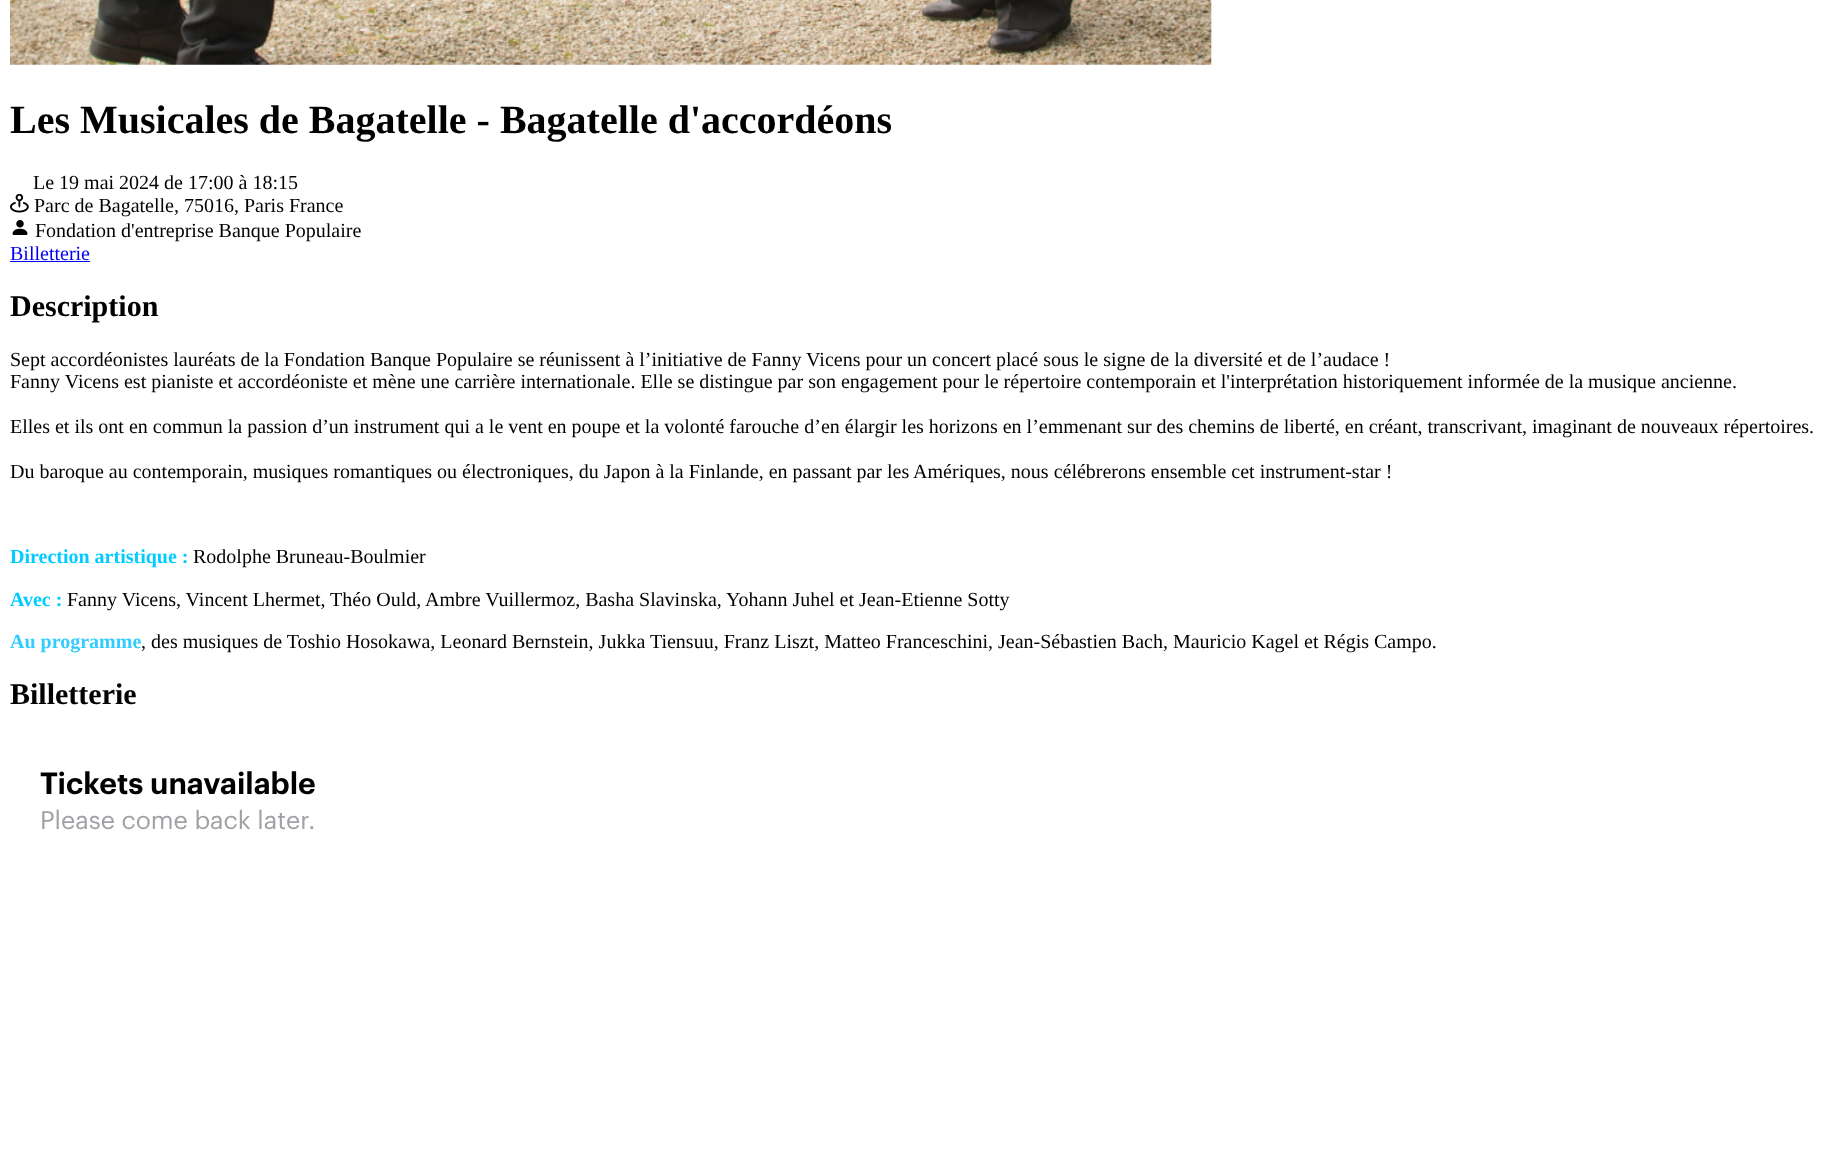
<!DOCTYPE html>
<meta charset="utf-8">
<style>body { margin: 0 } canvas { display: block }</style>
<canvas id="canvas" width="1845" height="1162"></canvas>
<img id="img1" src="img_01.png" hidden>
<img id="img2" src="img_02.png" hidden>
<img id="img3" src="img_03.png" hidden>
<img id="img4" src="img_04.png" hidden>
<script>
window.onload = function () {
	const canvas = document.getElementById("canvas");
	const ctx = canvas.getContext("2d");
	ctx.miterLimit = 4;
	ctx.fontKerning = "normal";
	function txt(s, x, y) {
		ctx.fillText(s, x, y);
	}
	function fill(x, y, w, h) {
		ctx.fillRect(x, y, w, h);
	}
	function img(id, x, y, w, h) {
		ctx.drawImage(document.getElementById(id), x, y, w, h);
	}

	ctx.fillStyle = "#FFFFFF";
	fill(0, 0, 1845, 1162);
	img("img1", 10, 0, 1202, 65);
	img("img2", 10, 194, 19, 19);
	img("img3", 12, 220, 16, 15);
	ctx.fillStyle = "#0000EE";
	fill(10, 261, 80, 1);
	img("img4", 40, 771, 275, 59);
	ctx.font = "bold 40px Liberation Serif";
	ctx.fillStyle = "#000000";
	txt("Les Musicales de Bagatelle - Bagatelle d'accordéons", 10, 133);
	ctx.font = "20px Liberation Serif";
	txt("Le 19 mai 2024 de 17:00 à 18:15", 33, 189);
	txt("Parc de Bagatelle, 75016, Paris France", 34, 212);
	txt("Fondation d'entreprise Banque Populaire", 35, 237);
	ctx.fillStyle = "#0000EE";
	txt("Billetterie", 10, 260);
	ctx.font = "bold 30px Liberation Serif";
	ctx.fillStyle = "#000000";
	txt("Description", 10, 316);
	ctx.font = "20px Liberation Serif";
	txt("Sept accordéonistes lauréats de la Fondation Banque Populaire se réunissent à l’initiative de Fanny Vicens pour un concert placé sous le signe de la diversité et de l’audace !", 10, 366);
	txt("Fanny Vicens est pianiste et accordéoniste et mène une carrière internationale. Elle se distingue par son engagement pour le répertoire contemporain et l'interprétation historiquement informée de la musique ancienne.", 10, 388);
	txt("Elles et ils ont en commun la passion d’un instrument qui a le vent en poupe et la volonté farouche d’en élargir les horizons en l’emmenant sur des chemins de liberté, en créant, transcrivant, imaginant de nouveaux répertoires.", 10, 433);
	txt("Du baroque au contemporain, musiques romantiques ou électroniques, du Japon à la Finlande, en passant par les Amériques, nous célébrerons ensemble cet instrument-star !", 10, 478);
	ctx.font = "bold 20px Liberation Serif";
	ctx.fillStyle = "#00CCFF";
	txt("Direction artistique :", 10, 563);
	ctx.font = "20px Liberation Serif";
	ctx.fillStyle = "#000000";
	txt("Rodolphe Bruneau-Boulmier", 193, 563);
	ctx.font = "bold 20px Liberation Serif";
	ctx.fillStyle = "#00CCFF";
	txt("Avec :", 10, 606);
	ctx.font = "20px Liberation Serif";
	ctx.fillStyle = "#000000";
	txt("Fanny Vicens, Vincent Lhermet, Théo Ould, Ambre Vuillermoz, Basha Slavinska, Yohann Juhel et Jean-Etienne Sotty", 67, 606);
	ctx.font = "bold 20px Liberation Serif";
	ctx.fillStyle = "#33CCFF";
	txt("Au programme", 10, 648);
	ctx.font = "20px Liberation Serif";
	ctx.fillStyle = "#000000";
	txt(", des musiques de Toshio Hosokawa, Leonard Bernstein, Jukka Tiensuu, Franz Liszt, Matteo Franceschini, Jean-Sébastien Bach, Mauricio Kagel et Régis Campo.", 141, 648);
	ctx.font = "bold 30px Liberation Serif";
	txt("Billetterie", 10, 704);
};
</script>
